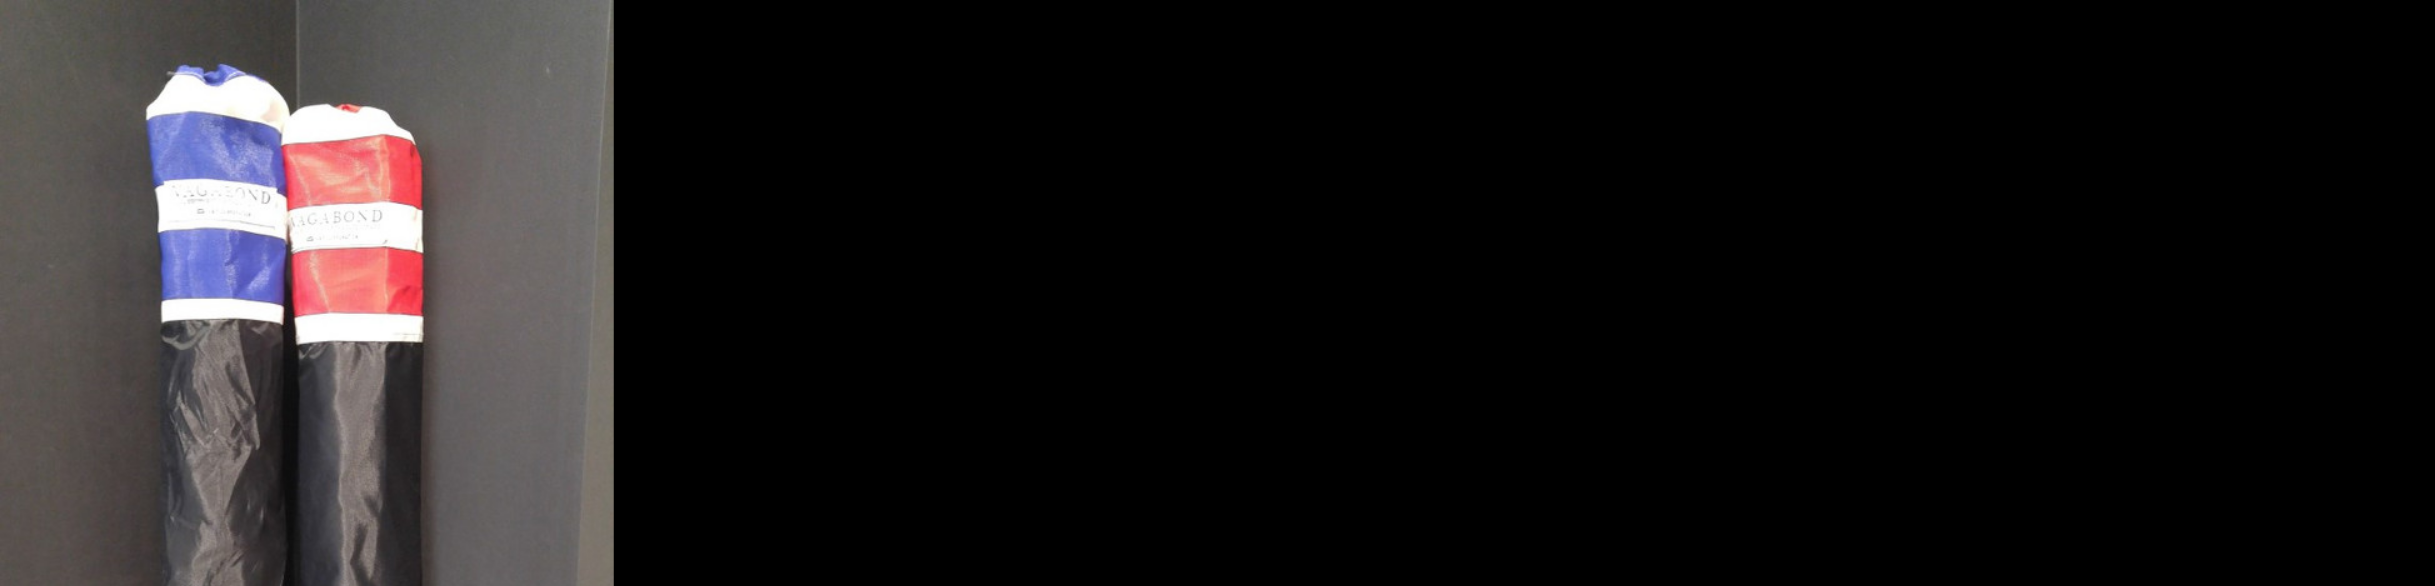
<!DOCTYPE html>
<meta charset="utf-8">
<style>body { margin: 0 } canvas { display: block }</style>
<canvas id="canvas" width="2435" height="586"></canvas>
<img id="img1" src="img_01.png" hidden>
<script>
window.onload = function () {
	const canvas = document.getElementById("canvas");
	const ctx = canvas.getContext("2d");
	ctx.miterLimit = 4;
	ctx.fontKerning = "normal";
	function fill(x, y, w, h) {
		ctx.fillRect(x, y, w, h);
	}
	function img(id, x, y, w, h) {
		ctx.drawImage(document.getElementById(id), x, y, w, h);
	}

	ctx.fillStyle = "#000000";
	fill(0, 0, 2435, 586);
	img("img1", 0, 0, 614, 586);
};
</script>
